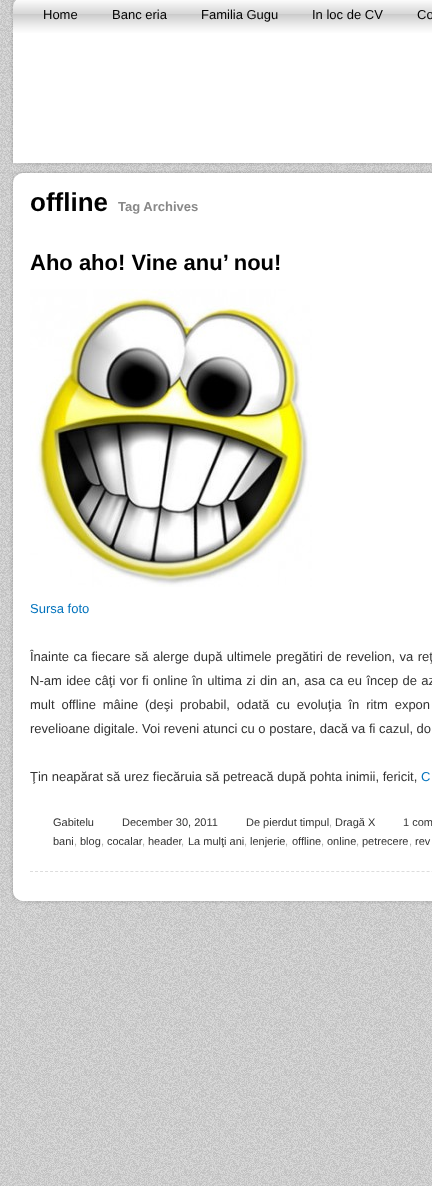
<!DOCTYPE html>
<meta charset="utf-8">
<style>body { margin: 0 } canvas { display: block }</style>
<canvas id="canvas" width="432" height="1186"></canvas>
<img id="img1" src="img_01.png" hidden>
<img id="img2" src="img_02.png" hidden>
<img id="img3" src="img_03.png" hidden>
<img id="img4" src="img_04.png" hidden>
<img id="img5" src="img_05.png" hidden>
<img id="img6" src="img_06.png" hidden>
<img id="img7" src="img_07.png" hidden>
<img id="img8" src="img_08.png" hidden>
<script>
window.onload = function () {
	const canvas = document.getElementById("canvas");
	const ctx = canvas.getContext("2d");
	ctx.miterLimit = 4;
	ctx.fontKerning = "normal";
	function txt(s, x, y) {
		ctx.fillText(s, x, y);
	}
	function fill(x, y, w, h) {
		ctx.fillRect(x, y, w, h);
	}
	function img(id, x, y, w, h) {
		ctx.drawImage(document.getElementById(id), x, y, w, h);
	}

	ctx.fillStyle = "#FFFFFF";
	fill(0, 0, 432, 1186);
	img("img1", 0, 0, 432, 1186);
	img("img2", 10, 0, 422, 33);
	img("img3", 10, 33, 422, 130);
	img("img4", 10, 163, 422, 3);
	img("img5", 10, 183, 422, 709);
	img("img6", 10, 170, 422, 13);
	ctx.beginPath();
	ctx.moveTo(30, 871.5);
	ctx.lineTo(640, 871.5);
	ctx.strokeStyle = "#DDDDDD";
	ctx.setLineDash([3, 2.02]);
	ctx.stroke();
	img("img7", 30, 289, 282, 298);
	img("img8", 10, 892, 422, 13);
	ctx.font = "13px Liberation Sans";
	ctx.fillStyle = "#000000";
	txt("Home", 43, 19);
	txt("Banc eria", 112, 19);
	txt("Familia Gugu", 201, 19);
	txt("In loc de CV", 312, 19);
	txt("Co", 417, 19);
	ctx.font = "bold 26px Liberation Sans";
	txt("offline", 30, 211);
	ctx.font = "bold 13px Liberation Sans";
	ctx.fillStyle = "#888888";
	txt("Tag Archives", 118, 211);
	ctx.font = "bold 22px Liberation Sans";
	ctx.fillStyle = "#000000";
	txt("Aho aho! Vine anu’ nou!", 30, 270);
	ctx.font = "13px Liberation Sans";
	ctx.fillStyle = "#0072BC";
	txt("Sursa foto", 30, 613);
	ctx.wordSpacing = "0.75px";
	ctx.fillStyle = "#333333";
	txt("Înainte ca fiecare să alerge după ultimele pregătiri de revelion, va reţ", 30, 661);
	txt("N-am idee câţi vor fi online în ultima zi din an, asa ca eu încep de az", 30, 685);
	ctx.wordSpacing = "3.25px";
	txt("mult offline mâine (deşi probabil, odată cu evoluţia în ritm expon", 30, 709);
	ctx.wordSpacing = "0px";
	txt("revelioane digitale. Voi reveni atunci cu o postare, dacă va fi cazul, do", 30, 733);
	txt("Ţin neapărat să urez fiecăruia să petreacă după pohta inimii, fericit,", 30, 781);
	ctx.fillStyle = "#0072BC";
	txt("C", 421, 781);
	ctx.font = "11px Liberation Sans";
	ctx.fillStyle = "#333333";
	txt("Gabitelu", 53, 826);
	txt("December 30, 2011", 122, 826);
	txt("De pierdut timpul", 246, 826);
	ctx.fillStyle = "#AAAAAA";
	txt(",", 329, 826);
	ctx.fillStyle = "#333333";
	txt("Dragă X", 335, 826);
	txt("1 com", 403, 826);
	txt("bani", 53, 845);
	ctx.fillStyle = "#AAAAAA";
	txt(",", 74, 845);
	ctx.fillStyle = "#333333";
	txt("blog", 80, 845);
	ctx.fillStyle = "#AAAAAA";
	txt(",", 101, 845);
	ctx.fillStyle = "#333333";
	txt("cocalar", 107, 845);
	txt("header", 148, 845);
	txt("La mulţi ani", 188, 845);
	txt("lenjerie", 250, 845);
	txt("offline", 292, 845);
	txt("online", 327, 845);
	txt("petrecere", 362, 845);
	txt("rev", 415, 845);
	ctx.fillStyle = "#AAAAAA";
	txt(",", 142, 845);
	txt(",", 181, 845);
	txt(",", 244, 845);
	txt(",", 285, 845);
	txt(",", 321, 845);
	txt(",", 356, 845);
	txt(",", 409, 845);
};
</script>
